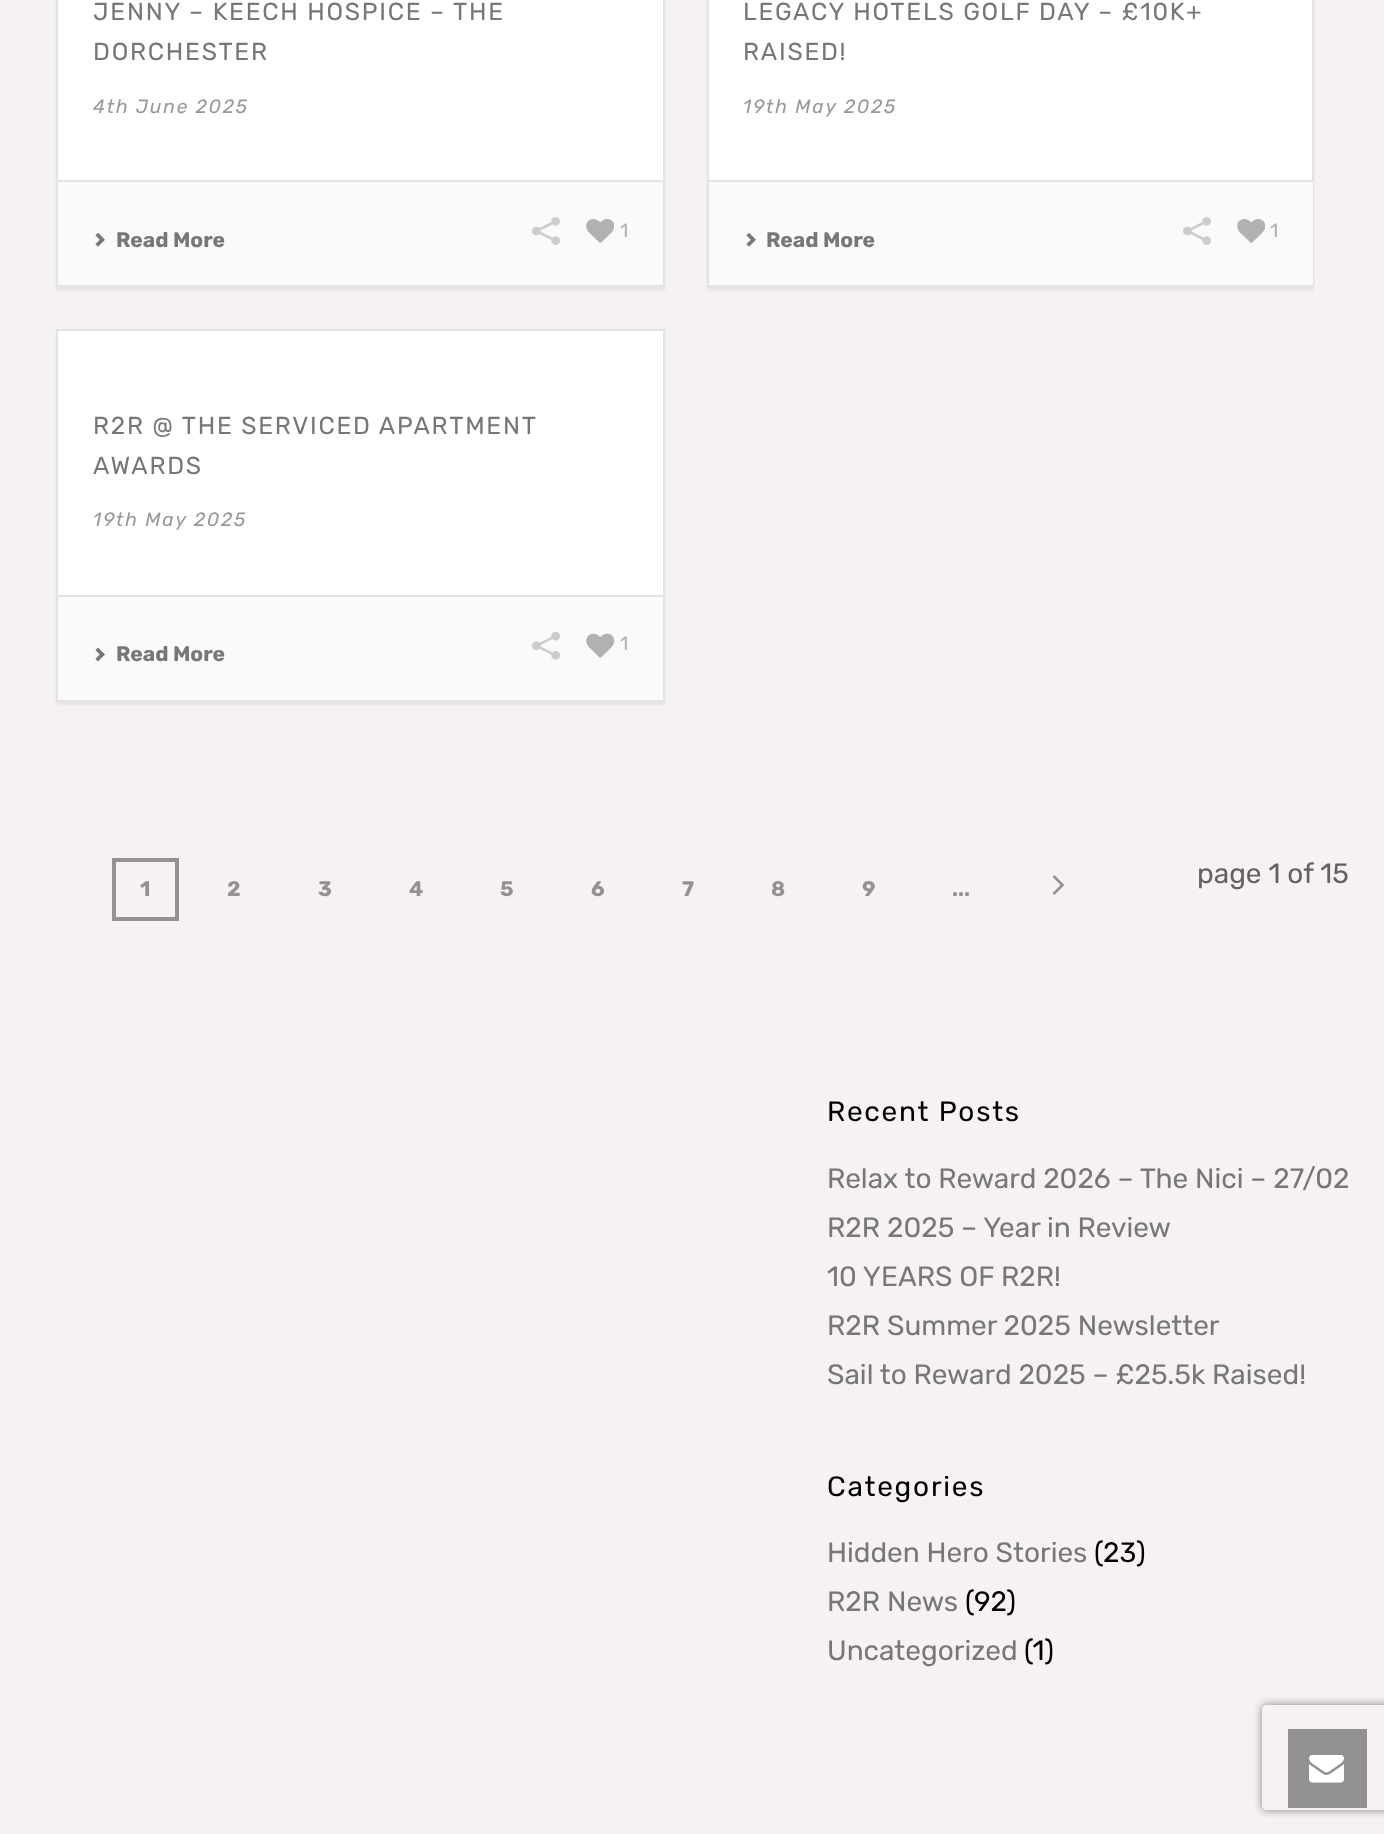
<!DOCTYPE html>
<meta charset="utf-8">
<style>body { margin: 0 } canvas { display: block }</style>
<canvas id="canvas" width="1384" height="1834"></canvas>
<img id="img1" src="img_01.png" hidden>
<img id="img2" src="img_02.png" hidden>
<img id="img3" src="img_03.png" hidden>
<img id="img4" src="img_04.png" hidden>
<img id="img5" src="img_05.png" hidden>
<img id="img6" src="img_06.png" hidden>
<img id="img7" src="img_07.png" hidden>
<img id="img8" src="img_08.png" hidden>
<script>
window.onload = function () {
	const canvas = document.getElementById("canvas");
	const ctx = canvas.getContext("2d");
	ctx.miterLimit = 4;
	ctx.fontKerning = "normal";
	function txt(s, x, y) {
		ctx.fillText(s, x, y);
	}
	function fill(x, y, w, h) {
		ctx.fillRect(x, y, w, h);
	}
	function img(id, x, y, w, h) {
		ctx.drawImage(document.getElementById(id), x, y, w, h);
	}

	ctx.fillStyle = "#F7F2F2";
	fill(0, 0, 1384, 1834);
	ctx.fillStyle = "rgba(0, 0, 0, 0.05)";
	ctx.filter = "blur(1px)";
	ctx.beginPath();
	ctx.rect(56, -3, 609, 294);
	ctx.fill();
	ctx.filter = "none";
	ctx.fillStyle = "#FFFFFF";
	fill(58, 0, 605, 180);
	ctx.strokeStyle = "#E3E3E3";
	ctx.lineWidth = 2;
	ctx.strokeRect(57, -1, 607, 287);
	ctx.fillStyle = "#FAFAFA";
	fill(58, 182, 605, 103);
	ctx.fillStyle = "#E3E3E3";
	fill(58, 180, 605, 2);
	img("img1", 532, 217, 28, 28);
	img("img2", 586, 219, 28, 24);
	img("img3", 95, 233, 10, 14);
	ctx.fillStyle = "rgba(0, 0, 0, 0.05)";
	ctx.filter = "blur(1px)";
	ctx.beginPath();
	ctx.rect(707, -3, 607, 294);
	ctx.fill();
	ctx.filter = "none";
	ctx.fillStyle = "#FFFFFF";
	fill(709, 0, 603, 180);
	ctx.strokeRect(708, -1, 605, 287);
	ctx.fillStyle = "#FAFAFA";
	fill(709, 182, 604, 103);
	ctx.fillStyle = "#E3E3E3";
	fill(709, 180, 604, 2);
	img("img1", 1183, 217, 28, 28);
	img("img2", 1237, 219, 28, 24);
	img("img3", 746, 233, 10, 14);
	ctx.fillStyle = "rgba(0, 0, 0, 0.05)";
	ctx.filter = "blur(1px)";
	ctx.beginPath();
	ctx.rect(56, 333, 609, 372);
	ctx.fill();
	ctx.filter = "none";
	ctx.fillStyle = "#FFFFFF";
	fill(58, 331, 605, 264);
	ctx.strokeRect(57, 330, 607, 371);
	ctx.fillStyle = "#FAFAFA";
	fill(58, 597, 605, 103);
	ctx.fillStyle = "#E3E3E3";
	fill(58, 595, 605, 2);
	img("img4", 532, 632, 28, 28);
	img("img5", 586, 633, 28, 25);
	img("img6", 95, 648, 10, 14);
	ctx.strokeStyle = "#949191";
	ctx.lineWidth = 4;
	ctx.strokeRect(114, 860, 63, 59);
	img("img7", 1052, 875, 12, 20);
	ctx.save();
	ctx.beginPath();
	ctx.moveTo(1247, 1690);
	ctx.lineTo(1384, 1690);
	ctx.lineTo(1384, 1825);
	ctx.lineTo(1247, 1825);
	ctx.closePath();
	ctx.moveTo(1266, 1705);
	ctx.lineTo(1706, 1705);
	ctx.bezierCurveTo(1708, 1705, 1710, 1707, 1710, 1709);
	ctx.lineTo(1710, 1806);
	ctx.bezierCurveTo(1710, 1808, 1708, 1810, 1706, 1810);
	ctx.lineTo(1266, 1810);
	ctx.bezierCurveTo(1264, 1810, 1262, 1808, 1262, 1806);
	ctx.lineTo(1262, 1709);
	ctx.bezierCurveTo(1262, 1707, 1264, 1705, 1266, 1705);
	ctx.closePath();
	ctx.clip("evenodd");
	ctx.fillStyle = "#808080";
	ctx.filter = "blur(4.5px)";
	ctx.beginPath();
	ctx.roundRect(1262, 1705, 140, 105, 4);
	ctx.fill();
	ctx.filter = "none";
	ctx.restore();
	ctx.fillStyle = "#949191";
	fill(1288, 1729, 79, 79);
	img("img8", 1309, 1755, 35, 28);
	ctx.letterSpacing = "1.75px";
	ctx.font = "24.5px Rubik";
	ctx.fillStyle = "#777777";
	txt("JENNY – KEECH HOSPICE – THE", 93, 20);
	txt("DORCHESTER", 93, 60);
	ctx.font = "italic 19.25px Rubik";
	ctx.fillStyle = "#999999";
	txt("4th June 2025", 93, 113);
	ctx.letterSpacing = "0px";
	ctx.font = "19.25px Rubik";
	ctx.fillStyle = "#B1B1B1";
	txt("1", 620, 237);
	ctx.font = "bold 21px Rubik";
	ctx.fillStyle = "#777777";
	txt("Read More", 116, 247);
	ctx.letterSpacing = "1.75px";
	ctx.font = "24.5px Rubik";
	txt("LEGACY HOTELS GOLF DAY – £10K+", 743, 20);
	txt("RAISED!", 743, 60);
	ctx.font = "italic 19.25px Rubik";
	ctx.fillStyle = "#999999";
	txt("19th May 2025", 743, 113);
	ctx.letterSpacing = "0px";
	ctx.font = "19.25px Rubik";
	ctx.fillStyle = "#B1B1B1";
	txt("1", 1270, 237);
	ctx.font = "bold 21px Rubik";
	ctx.fillStyle = "#777777";
	txt("Read More", 766, 247);
	ctx.letterSpacing = "1.75px";
	ctx.font = "24.5px Rubik";
	txt("R2R @ THE SERVICED APARTMENT", 93, 434);
	txt("AWARDS", 93, 474);
	ctx.font = "italic 19.25px Rubik";
	ctx.fillStyle = "#999999";
	txt("19th May 2025", 93, 526);
	ctx.letterSpacing = "0px";
	ctx.font = "19.25px Rubik";
	ctx.fillStyle = "#B1B1B1";
	txt("1", 620, 650);
	ctx.font = "bold 21px Rubik";
	ctx.fillStyle = "#777777";
	txt("Read More", 116, 661);
	ctx.fillStyle = "#949191";
	txt("1", 140, 896);
	txt("2", 227, 896);
	txt("3", 318, 896);
	txt("4", 409, 896);
	txt("5", 500, 896);
	txt("6", 591, 896);
	txt("7", 682, 896);
	txt("8", 771, 896);
	txt("9", 862, 896);
	txt("...", 952, 896);
	ctx.font = "28px Rubik";
	ctx.fillStyle = "#636161";
	txt("page 1 of 15", 1197, 883);
	ctx.letterSpacing = "1.75px";
	ctx.fillStyle = "#000000";
	txt("Recent Posts", 827, 1121);
	ctx.letterSpacing = "0px";
	ctx.fillStyle = "#777777";
	txt("Relax to Reward 2026 – The Nici – 27/02", 827, 1188);
	txt("R2R 2025 – Year in Review", 827, 1237);
	txt("10 YEARS OF R2R!", 827, 1286);
	txt("R2R Summer 2025 Newsletter", 827, 1335);
	txt("Sail to Reward 2025 – £25.5k Raised!", 827, 1384);
	ctx.letterSpacing = "1.75px";
	ctx.fillStyle = "#000000";
	txt("Categories", 827, 1496);
	ctx.letterSpacing = "0px";
	ctx.fillStyle = "#777777";
	txt("Hidden Hero Stories", 827, 1562);
	ctx.fillStyle = "#000000";
	txt("(23)", 1094, 1562);
	ctx.fillStyle = "#777777";
	txt("R2R News", 827, 1611);
	ctx.fillStyle = "#000000";
	txt("(92)", 965, 1611);
	ctx.fillStyle = "#777777";
	txt("Uncategorized", 827, 1660);
	ctx.fillStyle = "#000000";
	txt("(1)", 1024, 1660);
};
</script>
